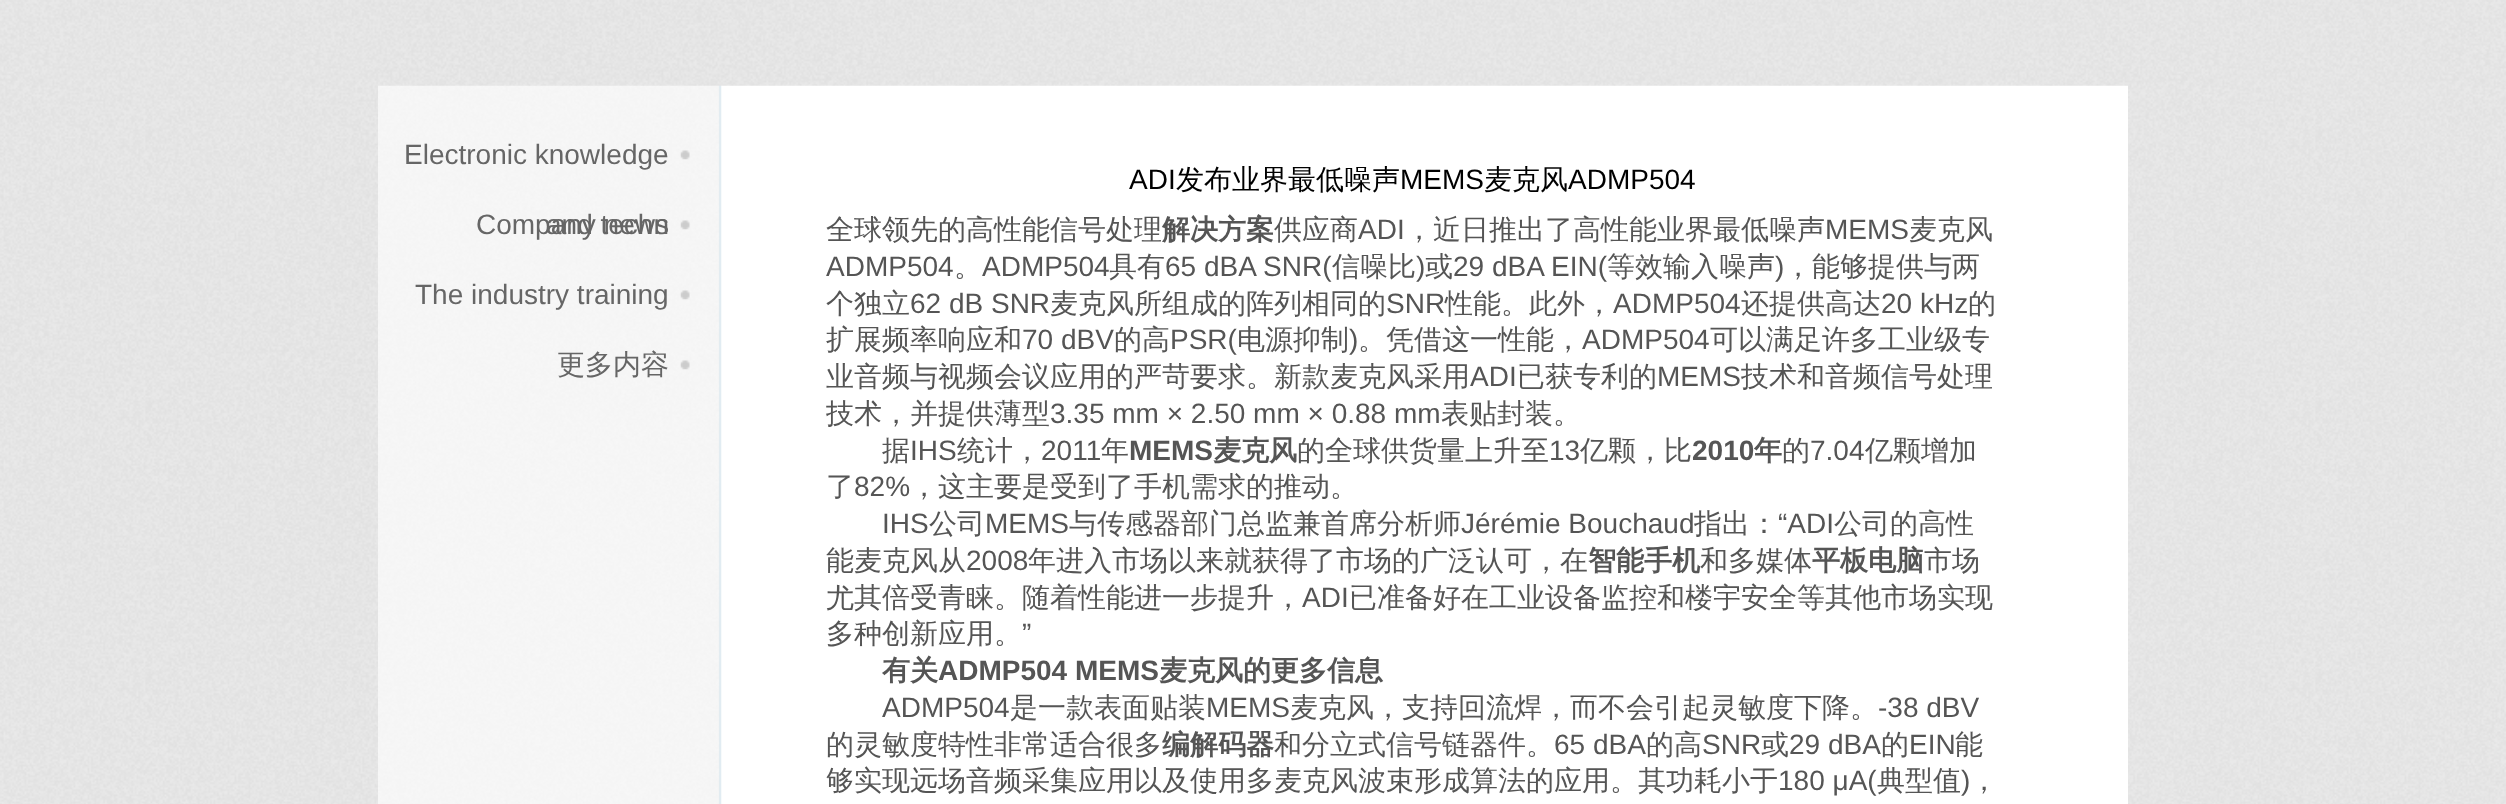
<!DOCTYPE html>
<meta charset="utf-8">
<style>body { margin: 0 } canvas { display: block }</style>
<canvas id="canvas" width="2506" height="804"></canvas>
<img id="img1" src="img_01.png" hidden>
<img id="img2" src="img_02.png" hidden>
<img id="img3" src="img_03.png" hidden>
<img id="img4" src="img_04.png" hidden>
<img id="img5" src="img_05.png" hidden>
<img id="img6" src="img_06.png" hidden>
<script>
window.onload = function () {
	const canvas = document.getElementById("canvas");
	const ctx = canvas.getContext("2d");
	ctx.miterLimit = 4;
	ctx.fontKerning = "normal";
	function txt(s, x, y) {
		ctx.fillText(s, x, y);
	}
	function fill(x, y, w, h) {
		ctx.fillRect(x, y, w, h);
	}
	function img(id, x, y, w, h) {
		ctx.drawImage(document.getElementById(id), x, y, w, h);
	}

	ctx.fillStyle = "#FFFFFF";
	fill(0, 0, 2506, 804);
	img("img1", 0, 0, 2506, 804);
	img("img2", 378, 85, 1750, 719);
	img("img3", 680, 150, 10, 10);
	img("img4", 680, 220, 10, 10);
	img("img5", 680, 290, 10, 10);
	img("img6", 680, 360, 10, 10);
	ctx.font = "28px Liberation Sans";
	ctx.fillStyle = "#666666";
	txt("Electronic knowledge", 404, 164);
	txt("and techn", 546, 234);
	txt("Company news", 476, 234);
	txt("The industry training", 415, 304);
	ctx.font = "500 28px WenQuanYi Zen Hei";
	txt("更多内容", 557, 374);
	ctx.font = "28px Liberation Sans";
	ctx.fillStyle = "#000000";
	txt("ADI", 1129, 189);
	ctx.font = "500 28px WenQuanYi Zen Hei";
	txt("发布业界最低噪声", 1176, 189);
	ctx.font = "28px Liberation Sans";
	txt("MEMS", 1400, 189);
	ctx.font = "500 28px WenQuanYi Zen Hei";
	txt("麦克风", 1484, 189);
	ctx.font = "28px Liberation Sans";
	txt("ADMP504", 1568, 189);
	ctx.font = "500 28px WenQuanYi Zen Hei";
	ctx.fillStyle = "#555555";
	txt("全球领先的高性能信号处理", 826, 239);
	ctx.font = "bold 28px WenQuanYi Zen Hei";
	txt("解决方案", 1162, 239);
	ctx.font = "500 28px WenQuanYi Zen Hei";
	txt("供应商", 1274, 239);
	ctx.font = "28px Liberation Sans";
	txt("ADI", 1358, 239);
	ctx.font = "500 28px WenQuanYi Zen Hei";
	txt("，近日推出了高性能业界最低噪声", 1405, 239);
	ctx.font = "28px Liberation Sans";
	txt("MEMS", 1825, 239);
	ctx.font = "500 28px WenQuanYi Zen Hei";
	txt("麦克风", 1909, 239);
	ctx.font = "28px Liberation Sans";
	txt("ADMP504", 826, 276);
	ctx.font = "500 28px WenQuanYi Zen Hei";
	txt("。", 954, 276);
	ctx.font = "28px Liberation Sans";
	txt("ADMP504", 982, 276);
	ctx.font = "500 28px WenQuanYi Zen Hei";
	txt("具有", 1109, 276);
	ctx.font = "28px Liberation Sans";
	txt("65 dBA SNR(", 1165, 276);
	ctx.font = "500 28px WenQuanYi Zen Hei";
	txt("信噪比", 1332, 276);
	ctx.font = "28px Liberation Sans";
	txt(")", 1416, 276);
	ctx.font = "500 28px WenQuanYi Zen Hei";
	txt("或", 1425, 276);
	ctx.font = "28px Liberation Sans";
	txt("29 dBA EIN(", 1453, 276);
	ctx.font = "500 28px WenQuanYi Zen Hei";
	txt("等效输入噪声", 1607, 276);
	ctx.font = "28px Liberation Sans";
	txt(")", 1775, 276);
	ctx.font = "500 28px WenQuanYi Zen Hei";
	txt("，能够提供与两", 1784, 276);
	txt("个独立", 826, 313);
	ctx.font = "28px Liberation Sans";
	txt("62 dB SNR", 910, 313);
	ctx.font = "500 28px WenQuanYi Zen Hei";
	txt("麦克风所组成的阵列相同的", 1050, 313);
	ctx.font = "28px Liberation Sans";
	txt("SNR", 1386, 313);
	ctx.font = "500 28px WenQuanYi Zen Hei";
	txt("性能。此外，", 1445, 313);
	ctx.font = "28px Liberation Sans";
	txt("ADMP504", 1613, 313);
	ctx.font = "500 28px WenQuanYi Zen Hei";
	txt("还提供高达", 1741, 313);
	ctx.font = "28px Liberation Sans";
	txt("20 kHz", 1881, 313);
	ctx.font = "500 28px WenQuanYi Zen Hei";
	txt("的", 1968, 313);
	txt("扩展频率响应和", 826, 349);
	ctx.font = "28px Liberation Sans";
	txt("70 dBV", 1022, 349);
	ctx.font = "500 28px WenQuanYi Zen Hei";
	txt("的高", 1114, 349);
	ctx.font = "28px Liberation Sans";
	txt("PSR(", 1170, 349);
	ctx.font = "500 28px WenQuanYi Zen Hei";
	txt("电源抑制", 1237, 349);
	ctx.font = "28px Liberation Sans";
	txt(")", 1349, 349);
	ctx.font = "500 28px WenQuanYi Zen Hei";
	txt("。凭借这一性能，", 1358, 349);
	ctx.font = "28px Liberation Sans";
	txt("ADMP504", 1582, 349);
	ctx.font = "500 28px WenQuanYi Zen Hei";
	txt("可以满足许多工业级专", 1710, 349);
	txt("业音频与视频会议应用的严苛要求。新款麦克风采用", 826, 386);
	ctx.font = "28px Liberation Sans";
	txt("ADI", 1470, 386);
	ctx.font = "500 28px WenQuanYi Zen Hei";
	txt("已获专利的", 1517, 386);
	ctx.font = "28px Liberation Sans";
	txt("MEMS", 1657, 386);
	ctx.font = "500 28px WenQuanYi Zen Hei";
	txt("技术和音频信号处理", 1741, 386);
	txt("技术，并提供薄型", 826, 423);
	ctx.font = "28px Liberation Sans";
	txt("3.35 mm × 2.50 mm × 0.88 mm", 1050, 423);
	ctx.font = "500 28px WenQuanYi Zen Hei";
	txt("表贴封装。", 1441, 423);
	txt("据", 882, 460);
	ctx.font = "28px Liberation Sans";
	txt("IHS", 910, 460);
	ctx.font = "500 28px WenQuanYi Zen Hei";
	txt("统计，", 957, 460);
	ctx.font = "28px Liberation Sans";
	txt("2011", 1041, 460);
	ctx.font = "500 28px WenQuanYi Zen Hei";
	txt("年", 1101, 460);
	ctx.font = "bold 28px Liberation Sans";
	txt("MEMS", 1129, 460);
	ctx.font = "bold 28px WenQuanYi Zen Hei";
	txt("麦克风", 1213, 460);
	ctx.font = "500 28px WenQuanYi Zen Hei";
	txt("的全球供货量上升至", 1297, 460);
	ctx.font = "28px Liberation Sans";
	txt("13", 1549, 460);
	ctx.font = "500 28px WenQuanYi Zen Hei";
	txt("亿颗，比", 1580, 460);
	ctx.font = "bold 28px Liberation Sans";
	txt("2010", 1692, 460);
	ctx.font = "bold 28px WenQuanYi Zen Hei";
	txt("年", 1754, 460);
	ctx.font = "500 28px WenQuanYi Zen Hei";
	txt("的", 1782, 460);
	ctx.font = "28px Liberation Sans";
	txt("7.04", 1810, 460);
	ctx.font = "500 28px WenQuanYi Zen Hei";
	txt("亿颗增加", 1865, 460);
	txt("了", 826, 496);
	ctx.font = "28px Liberation Sans";
	txt("82%", 854, 496);
	ctx.font = "500 28px WenQuanYi Zen Hei";
	txt("，这主要是受到了手机需求的推动。", 910, 496);
	ctx.font = "28px Liberation Sans";
	txt("IHS", 882, 533);
	ctx.font = "500 28px WenQuanYi Zen Hei";
	txt("公司", 929, 533);
	ctx.font = "28px Liberation Sans";
	txt("MEMS", 985, 533);
	ctx.font = "500 28px WenQuanYi Zen Hei";
	txt("与传感器部门总监兼首席分析师", 1069, 533);
	ctx.font = "28px Liberation Sans";
	txt("Jérémie Bouchaud", 1461, 533);
	ctx.font = "500 28px WenQuanYi Zen Hei";
	txt("指出：", 1694, 533);
	ctx.font = "28px Liberation Sans";
	txt("“ADI", 1778, 533);
	ctx.font = "500 28px WenQuanYi Zen Hei";
	txt("公司的高性", 1834, 533);
	txt("能麦克风从", 826, 570);
	ctx.font = "28px Liberation Sans";
	txt("2008", 966, 570);
	ctx.font = "500 28px WenQuanYi Zen Hei";
	txt("年进入市场以来就获得了市场的广泛认可，在", 1028, 570);
	ctx.font = "bold 28px WenQuanYi Zen Hei";
	txt("智能手机", 1588, 570);
	ctx.font = "500 28px WenQuanYi Zen Hei";
	txt("和多媒体", 1700, 570);
	ctx.font = "bold 28px WenQuanYi Zen Hei";
	txt("平板电脑", 1812, 570);
	ctx.font = "500 28px WenQuanYi Zen Hei";
	txt("市场", 1924, 570);
	txt("尤其倍受青睐。随着性能进一步提升，", 826, 607);
	ctx.font = "28px Liberation Sans";
	txt("ADI", 1302, 607);
	ctx.font = "500 28px WenQuanYi Zen Hei";
	txt("已准备好在工业设备监控和楼宇安全等其他市场实现", 1349, 607);
	txt("多种创新应用。", 826, 643);
	ctx.font = "28px Liberation Sans";
	txt("”", 1022, 643);
	ctx.font = "bold 28px WenQuanYi Zen Hei";
	txt("有关", 882, 680);
	ctx.font = "bold 28px Liberation Sans";
	txt("ADMP504 MEMS", 938, 680);
	ctx.font = "bold 28px WenQuanYi Zen Hei";
	txt("麦克风的更多信息", 1159, 680);
	ctx.font = "28px Liberation Sans";
	txt("ADMP504", 882, 717);
	ctx.font = "500 28px WenQuanYi Zen Hei";
	txt("是一款表面贴装", 1010, 717);
	ctx.font = "28px Liberation Sans";
	txt("MEMS", 1206, 717);
	ctx.font = "500 28px WenQuanYi Zen Hei";
	txt("麦克风，支持回流焊，而不会引起灵敏度下降。", 1290, 717);
	ctx.font = "28px Liberation Sans";
	txt("-38 dBV", 1878, 717);
	ctx.font = "500 28px WenQuanYi Zen Hei";
	txt("的灵敏度特性非常适合很多", 826, 754);
	ctx.font = "bold 28px WenQuanYi Zen Hei";
	txt("编解码器", 1162, 754);
	ctx.font = "500 28px WenQuanYi Zen Hei";
	txt("和分立式信号链器件。", 1274, 754);
	ctx.font = "28px Liberation Sans";
	txt("65 dBA", 1554, 754);
	ctx.font = "500 28px WenQuanYi Zen Hei";
	txt("的高", 1646, 754);
	ctx.font = "28px Liberation Sans";
	txt("SNR", 1702, 754);
	ctx.font = "500 28px WenQuanYi Zen Hei";
	txt("或", 1761, 754);
	ctx.font = "28px Liberation Sans";
	txt("29 dBA", 1789, 754);
	ctx.font = "500 28px WenQuanYi Zen Hei";
	txt("的", 1881, 754);
	ctx.font = "28px Liberation Sans";
	txt("EIN", 1909, 754);
	ctx.font = "500 28px WenQuanYi Zen Hei";
	txt("能", 1955, 754);
	txt("够实现远场音频采集应用以及使用多麦克风波束形成算法的应用。其功耗小于", 826, 790);
	ctx.font = "28px Liberation Sans";
	txt("180 μA(", 1778, 790);
	ctx.font = "500 28px WenQuanYi Zen Hei";
	txt("典型值", 1877, 790);
	ctx.font = "28px Liberation Sans";
	txt(")", 1961, 790);
	ctx.font = "500 28px WenQuanYi Zen Hei";
	txt("，", 1970, 790);
};
</script>
